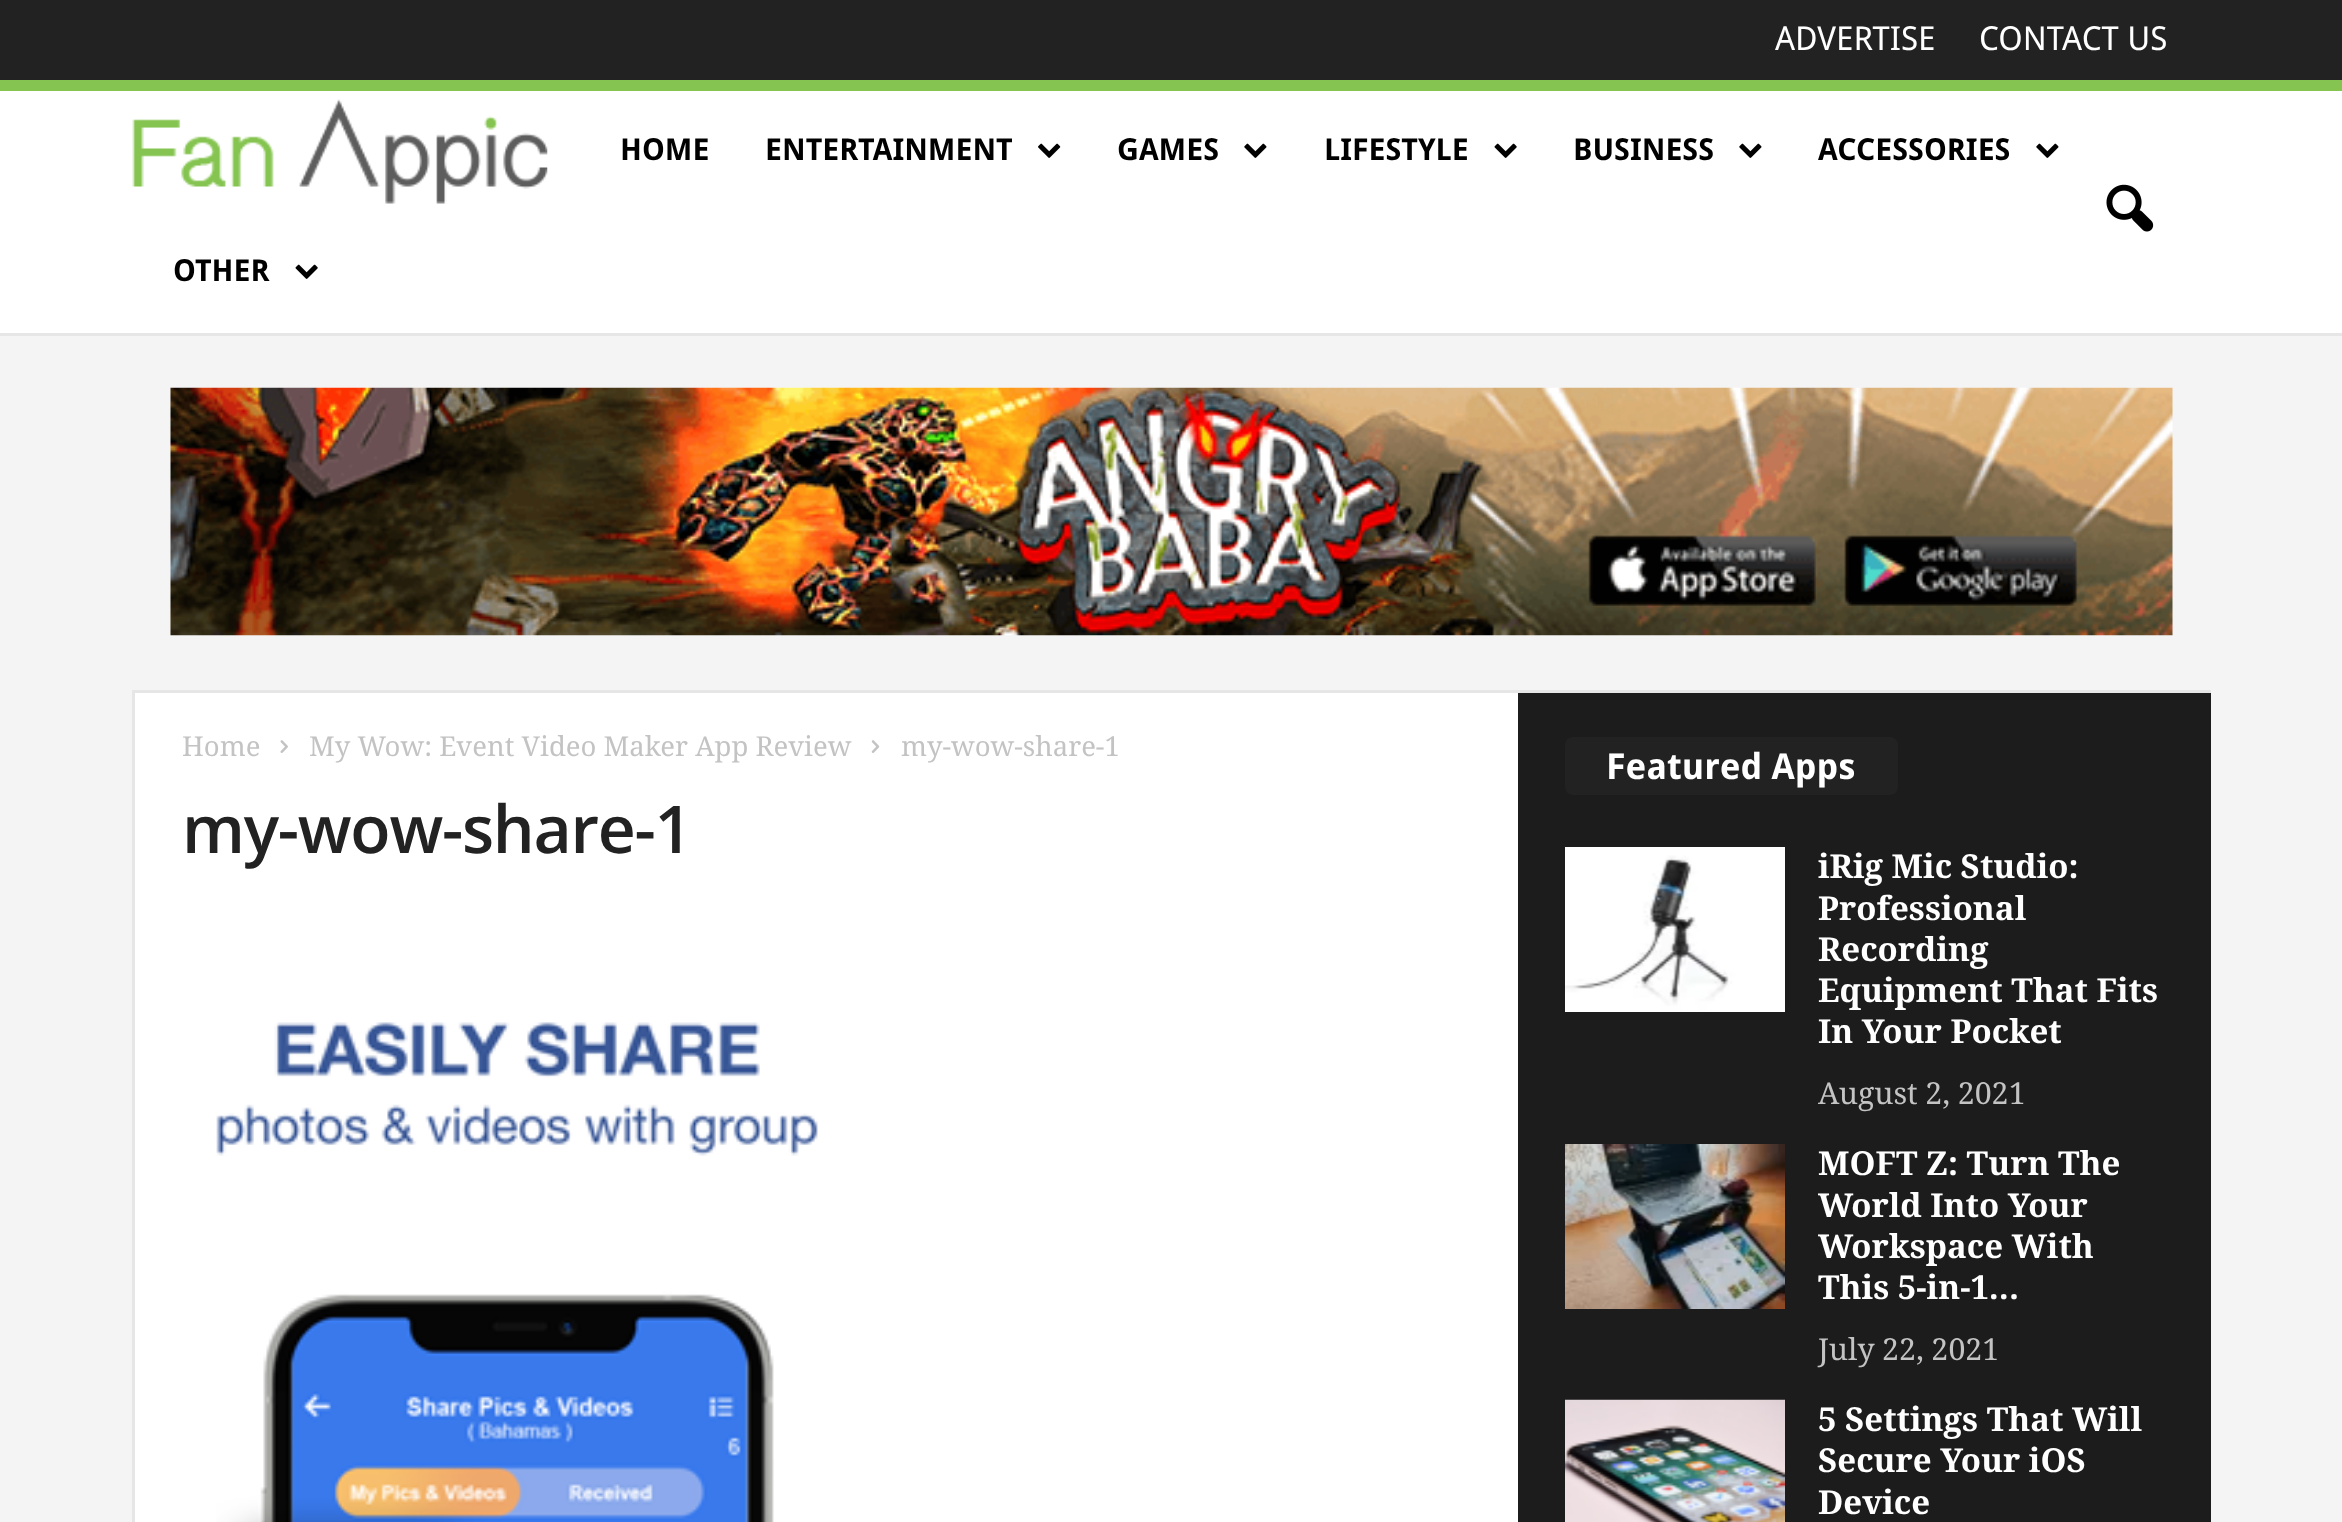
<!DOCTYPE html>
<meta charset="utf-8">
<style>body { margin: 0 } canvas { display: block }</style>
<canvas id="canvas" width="2342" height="1522"></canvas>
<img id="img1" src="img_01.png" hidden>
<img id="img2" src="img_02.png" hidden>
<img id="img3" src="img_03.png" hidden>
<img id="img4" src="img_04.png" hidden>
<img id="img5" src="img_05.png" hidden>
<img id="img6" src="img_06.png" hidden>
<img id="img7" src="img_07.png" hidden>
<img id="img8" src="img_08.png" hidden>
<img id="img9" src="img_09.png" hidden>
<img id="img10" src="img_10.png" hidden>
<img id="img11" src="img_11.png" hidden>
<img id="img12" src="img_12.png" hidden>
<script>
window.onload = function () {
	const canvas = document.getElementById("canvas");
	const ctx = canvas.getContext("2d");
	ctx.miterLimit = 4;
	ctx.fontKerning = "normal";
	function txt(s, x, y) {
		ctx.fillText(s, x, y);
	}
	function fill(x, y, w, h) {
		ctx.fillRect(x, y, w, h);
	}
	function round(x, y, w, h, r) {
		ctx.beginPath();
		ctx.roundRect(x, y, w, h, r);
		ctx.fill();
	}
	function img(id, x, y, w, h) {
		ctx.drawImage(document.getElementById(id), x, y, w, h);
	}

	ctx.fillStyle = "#F4F4F4";
	fill(0, 0, 2342, 1522);
	ctx.fillStyle = "#222222";
	fill(0, 0, 2342, 80);
	ctx.fillStyle = "#FFFFFF";
	fill(0, 91, 2342, 242);
	ctx.fillStyle = "#E6E6E6";
	fill(0, 333, 2342, 3);
	ctx.fillStyle = "#85C450";
	fill(0, 80, 2342, 11);
	img("img1", 132, 99, 416, 105);
	img("img2", 1038, 143, 23, 15);
	img("img3", 1244, 143, 23, 15);
	img("img4", 1494, 143, 23, 15);
	img("img3", 1739, 143, 23, 15);
	img("img3", 2036, 143, 23, 15);
	img("img4", 295, 264, 23, 15);
	img("img5", 2106, 184, 48, 48);
	ctx.fillStyle = "#E6E6E6";
	fill(132, 690, 2079, 3);
	img("img6", 170, 387, 2003, 249);
	ctx.fillStyle = "#FFFFFF";
	fill(135, 693, 1383, 829);
	ctx.fillStyle = "#E6E6E6";
	fill(132, 693, 3, 829);
	img("img7", 280, 740, 8, 13);
	img("img8", 871, 740, 9, 13);
	img("img9", 216, 1022, 602, 500);
	ctx.fillStyle = "#1C1C1C";
	fill(1518, 693, 693, 829);
	ctx.fillStyle = "#222222";
	round(1565, 737, 333, 58, 8);
	img("img10", 1565, 847, 220, 165);
	img("img11", 1565, 1144, 220, 165);
	img("img12", 1565, 1399, 220, 123);
	ctx.font = "33px Droid Sans";
	ctx.fillStyle = "#FFFFFF";
	txt("ADVERTISE", 1775, 50);
	txt("CONTACT US", 1979, 50);
	ctx.font = "bold 30.25px Droid Sans";
	ctx.fillStyle = "#000000";
	txt("HOME", 620, 160);
	txt("ENTERTAINMENT", 765, 160);
	txt("GAMES", 1117, 160);
	txt("LIFESTYLE", 1324, 160);
	txt("BUSINESS", 1573, 160);
	txt("ACCESSORIES", 1818, 160);
	txt("OTHER", 173, 281);
	ctx.font = "27.5px Droid Serif";
	ctx.fillStyle = "#C3C3C3";
	txt("Home", 182, 756);
	txt("My Wow: Event Video Maker App Review", 309, 756);
	txt("my-wow-share-1", 901, 756);
	ctx.letterSpacing = "-1.25px";
	ctx.font = "600 66px Open Sans";
	ctx.fillStyle = "#222222";
	txt("my-wow-share-1", 182, 853);
	ctx.letterSpacing = "0px";
	ctx.font = "bold 35.75px Droid Sans";
	ctx.fillStyle = "#FFFFFF";
	txt("Featured Apps", 1606, 779);
	ctx.font = "bold 33px Droid Serif";
	txt("iRig Mic Studio:", 1818, 878);
	txt("Professional", 1818, 920);
	txt("Recording", 1818, 961);
	txt("Equipment That Fits", 1818, 1002);
	txt("In Your Pocket", 1818, 1043);
	ctx.font = "30.25px Droid Serif";
	ctx.fillStyle = "#C3C3C3";
	txt("August 2, 2021", 1818, 1104);
	ctx.font = "bold 33px Droid Serif";
	ctx.fillStyle = "#FFFFFF";
	txt("MOFT Z: Turn The", 1818, 1175);
	txt("World Into Your", 1818, 1217);
	txt("Workspace With", 1818, 1258);
	txt("This 5-in-1...", 1818, 1299);
	ctx.font = "30.25px Droid Serif";
	ctx.fillStyle = "#C3C3C3";
	txt("July 22, 2021", 1818, 1360);
	ctx.font = "bold 33px Droid Serif";
	ctx.fillStyle = "#FFFFFF";
	txt("5 Settings That Will", 1818, 1431);
	txt("Secure Your iOS", 1818, 1472);
	txt("Device", 1818, 1514);
};
</script>
